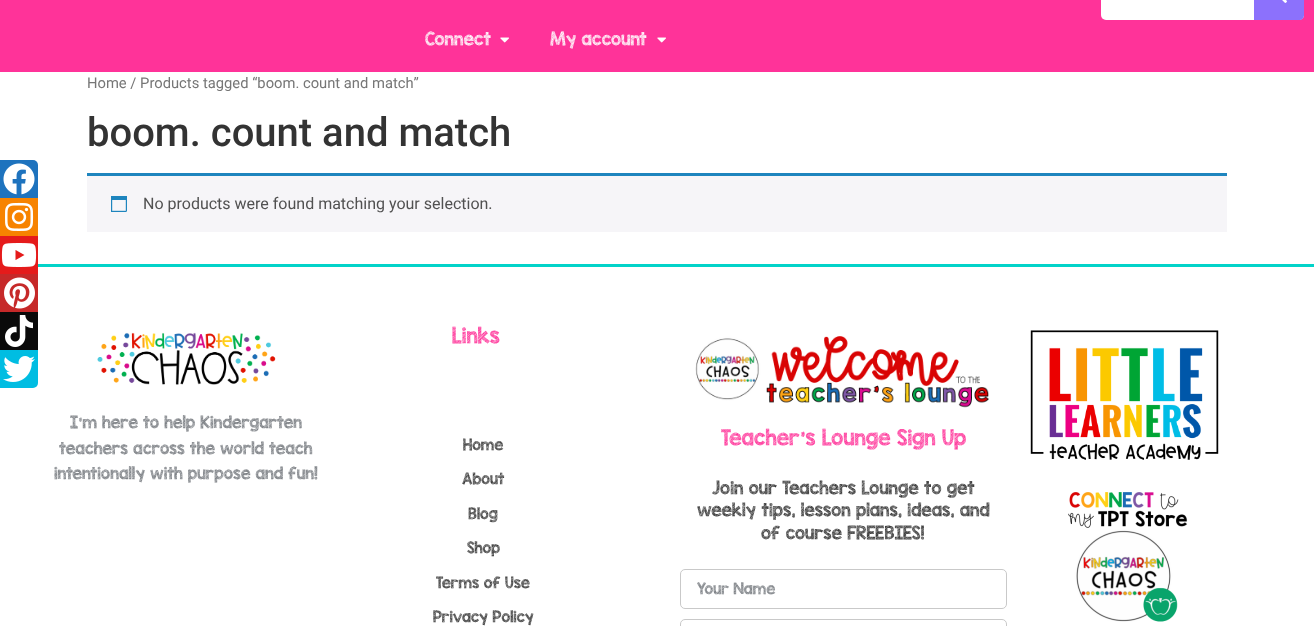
<!DOCTYPE html>
<meta charset="utf-8">
<style>body { margin: 0 } canvas { display: block }</style>
<canvas id="canvas" width="1314" height="626"></canvas>
<img id="img1" src="img_01.png" hidden>
<img id="img2" src="img_02.png" hidden>
<img id="img3" src="img_03.png" hidden>
<img id="img4" src="img_04.png" hidden>
<img id="img5" src="img_05.png" hidden>
<img id="img6" src="img_06.png" hidden>
<img id="img7" src="img_07.png" hidden>
<img id="img8" src="img_08.png" hidden>
<img id="img9" src="img_09.png" hidden>
<img id="img10" src="img_10.png" hidden>
<img id="img11" src="img_11.png" hidden>
<img id="img12" src="img_12.png" hidden>
<img id="img13" src="img_13.png" hidden>
<script>
window.onload = function () {
	const canvas = document.getElementById("canvas");
	const ctx = canvas.getContext("2d");
	ctx.miterLimit = 4;
	ctx.fontKerning = "normal";
	function txt(s, x, y) {
		ctx.fillText(s, x, y);
	}
	function fill(x, y, w, h) {
		ctx.fillRect(x, y, w, h);
	}
	function round(x, y, w, h, r) {
		ctx.beginPath();
		ctx.roundRect(x, y, w, h, r);
		ctx.fill();
	}
	function img(id, x, y, w, h) {
		ctx.drawImage(document.getElementById(id), x, y, w, h);
	}

	ctx.fillStyle = "#FFFFFF";
	fill(0, 0, 1314, 626);
	ctx.fillStyle = "#FF3399";
	fill(0, 0, 1314, 72);
	ctx.fillStyle = "#FFFFFF";
	round(1101, -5, 203, 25, 5);
	ctx.fillStyle = "#8C71FC";
	ctx.beginPath();
	ctx.moveTo(1254, -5);
	ctx.lineTo(1299, -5);
	ctx.bezierCurveTo(1302, -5, 1304, -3, 1304, 0);
	ctx.lineTo(1304, 15);
	ctx.bezierCurveTo(1304, 18, 1302, 20, 1299, 20);
	ctx.lineTo(1254, 20);
	ctx.closePath();
	ctx.fill();
	img("img1", 1282, 0, 5, 3);
	img("img2", 500, 37, 9, 6);
	img("img2", 657, 37, 9, 6);
	ctx.fillStyle = "#F6F5F8";
	fill(87, 176, 1140, 56);
	ctx.fillStyle = "#1E85BE";
	fill(87, 173, 1140, 3);
	img("img3", 111, 196, 16, 16);
	ctx.fillStyle = "#1E73BE";
	ctx.beginPath();
	ctx.roundRect(0, 160, 38, 38, [0, 5, 0, 0]);
	ctx.fill();
	img("img4", 3, 163, 32, 32);
	ctx.fillStyle = "#F78300";
	fill(0, 198, 38, 38);
	img("img5", 5, 202, 29, 29);
	ctx.fillStyle = "#E51B1B";
	fill(0, 236, 38, 38);
	img("img6", 1, 243, 36, 24);
	ctx.fillStyle = "#C62929";
	fill(0, 274, 38, 38);
	img("img7", 4, 277, 31, 32);
	ctx.fillStyle = "#0A0A0A";
	fill(0, 312, 38, 38);
	img("img8", 5, 315, 28, 32);
	ctx.fillStyle = "#00BDE2";
	ctx.beginPath();
	ctx.roundRect(0, 350, 38, 38, [0, 0, 5, 0]);
	ctx.fill();
	img("img9", 3, 356, 32, 26);
	ctx.fillStyle = "#02D3C9";
	fill(38, 264, 1276, 3);
	img("img10", 97, 332, 179, 53);
	img("img11", 695, 336, 294, 72);
	ctx.beginPath();
	ctx.roundRect(680.5, 569.5, 326, 39, 4.5);
	ctx.strokeStyle = "#C9C9C9";
	ctx.stroke();
	ctx.beginPath();
	ctx.roundRect(680.5, 619.5, 326, 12, 4.5);
	ctx.stroke();
	img("img12", 1030, 330, 189, 130);
	img("img13", 1068, 492, 120, 130);
	ctx.font = "15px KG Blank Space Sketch";
	ctx.fillStyle = "#FFFFFF";
	txt("Connect", 425, 45);
	txt("My account", 550, 45);
	ctx.font = "14.75px Roboto";
	ctx.fillStyle = "#767676";
	txt("Home / Products tagged “boom. count and match”", 87, 88);
	ctx.font = "500 40px Roboto";
	ctx.fillStyle = "#333333";
	txt("boom. count and match", 87, 146);
	ctx.font = "16px Roboto";
	ctx.fillStyle = "#515151";
	txt("No products were found matching your selection.", 143, 209);
	ctx.font = "14px KG Blank Space Sketch";
	ctx.fillStyle = "#787C81";
	txt("I’m here to help Kindergarten", 70, 428);
	txt("teachers across the world teach", 59, 454);
	txt("intentionally with purpose and fun!", 54, 479);
	ctx.font = "18px KG Blank Space Sketch";
	ctx.fillStyle = "#FF3399";
	txt("Links", 452, 343);
	ctx.font = "13px KG Blank Space Sketch";
	ctx.fillStyle = "#333333";
	txt("Home", 463, 450);
	txt("About", 462, 484);
	txt("Blog", 468, 519);
	txt("Shop", 467, 553);
	txt("Terms of Use", 436, 588);
	txt("Privacy Policy", 433, 622);
	ctx.font = "18px KG Blank Space Sketch";
	ctx.fillStyle = "#FF3399";
	txt("Teacher’s Lounge Sign Up", 721, 445);
	ctx.font = "15px KG Blank Space Sketch";
	ctx.fillStyle = "#333333";
	txt("Join our Teachers Lounge to get", 712, 494);
	txt("weekly tips, lesson plans, ideas, and", 697, 516);
	txt("of course FREEBIES!", 761, 539);
	ctx.font = "13px KG Blank Space Sketch";
	ctx.fillStyle = "#787C81";
	txt("Your Name", 697, 594);
};
</script>
